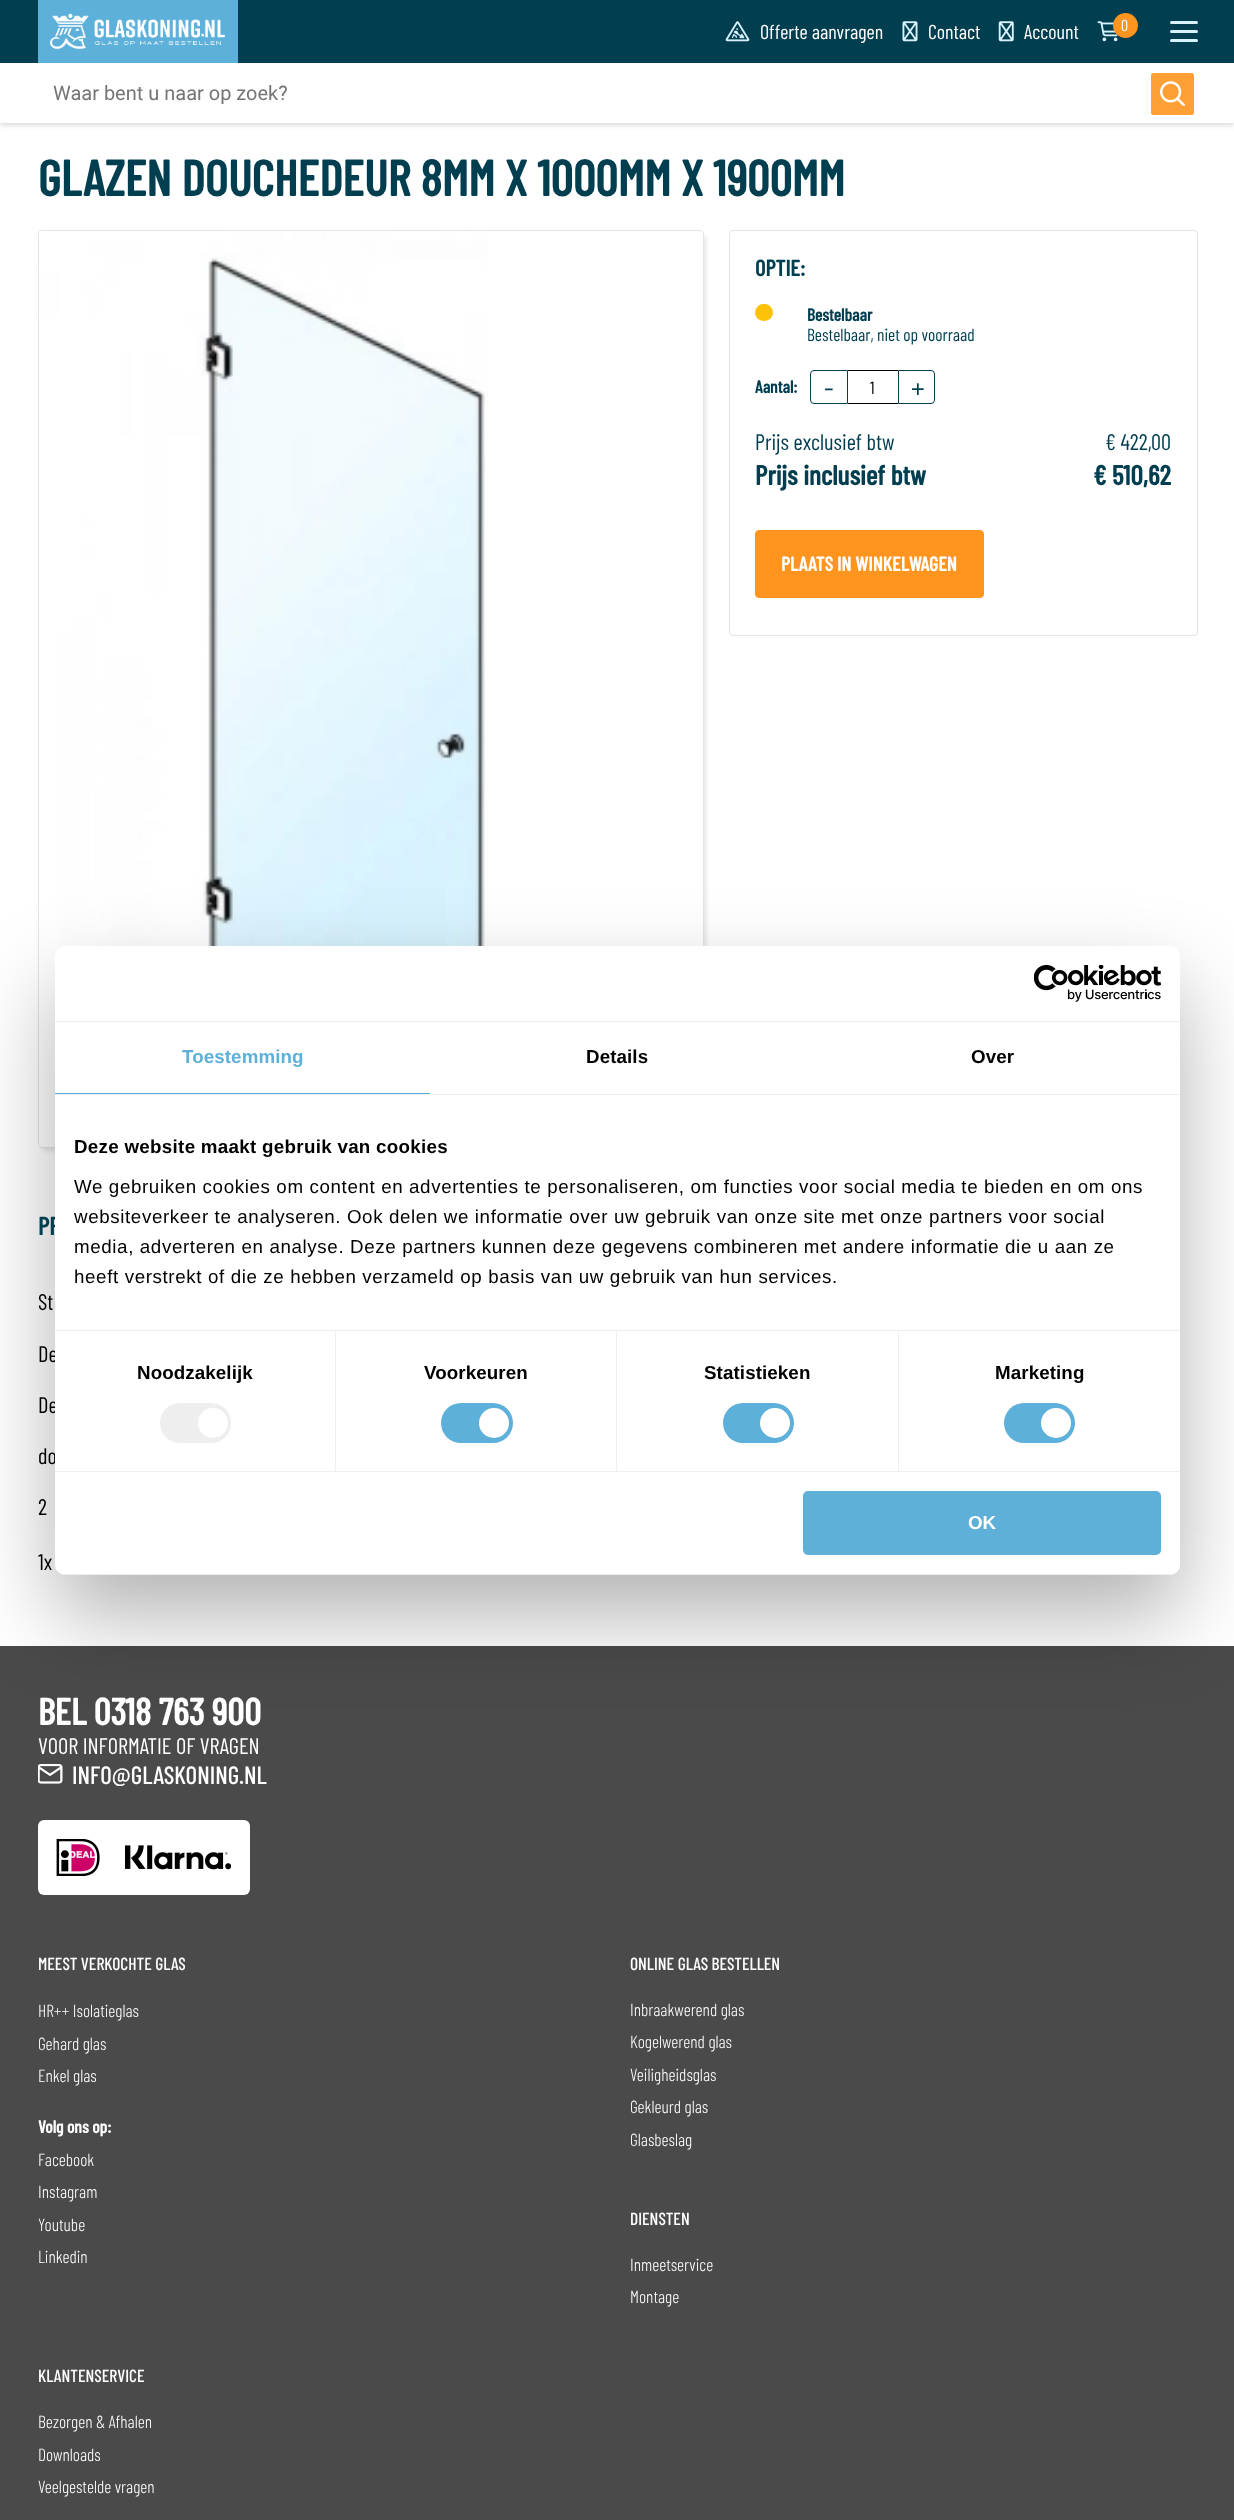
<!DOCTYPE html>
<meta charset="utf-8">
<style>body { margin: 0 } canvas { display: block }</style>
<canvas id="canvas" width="1234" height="2520"></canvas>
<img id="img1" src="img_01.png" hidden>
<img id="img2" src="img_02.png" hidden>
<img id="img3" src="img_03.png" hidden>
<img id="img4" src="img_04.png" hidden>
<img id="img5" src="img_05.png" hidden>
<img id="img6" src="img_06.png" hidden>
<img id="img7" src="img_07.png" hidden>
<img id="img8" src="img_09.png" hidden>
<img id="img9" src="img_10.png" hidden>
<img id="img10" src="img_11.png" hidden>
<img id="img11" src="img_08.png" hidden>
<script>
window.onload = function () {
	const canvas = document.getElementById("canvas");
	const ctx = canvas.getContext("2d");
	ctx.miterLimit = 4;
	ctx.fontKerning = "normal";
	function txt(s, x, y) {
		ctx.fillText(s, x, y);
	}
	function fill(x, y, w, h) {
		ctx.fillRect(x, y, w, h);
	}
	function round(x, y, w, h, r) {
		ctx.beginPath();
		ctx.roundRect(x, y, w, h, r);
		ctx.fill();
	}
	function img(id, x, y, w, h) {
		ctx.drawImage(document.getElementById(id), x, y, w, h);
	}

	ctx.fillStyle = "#FFFFFF";
	fill(0, 0, 1234, 2520);
	ctx.fillStyle = "rgba(0, 0, 0, 0.15)";
	ctx.filter = "blur(2.5px)";
	ctx.beginPath();
	ctx.rect(0, 65, 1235, 60);
	ctx.fill();
	ctx.filter = "none";
	ctx.fillStyle = "#003E50";
	fill(0, 0, 1234, 63);
	ctx.fillStyle = "#5DB0D9";
	fill(38, 0, 200, 63);
	img("img1", 50, 13, 175, 37);
	img("img2", 725, 21, 25, 21);
	img("img3", 902, 21, 16, 21);
	img("img4", 998, 21, 16, 21);
	img("img5", 1097, 21, 21, 21);
	ctx.fillStyle = "#FF941F";
	ctx.beginPath();
	ctx.arc(1125.5, 25.5, 12.5, 0, Math.PI * 2);
	ctx.fill();
	ctx.fillStyle = "#D8F2FE";
	round(1170, 21, 28, 3, 1.5);
	round(1170, 30, 28, 3, 1.5);
	round(1170, 39, 28, 3, 1.5);
	ctx.fillStyle = "#FFFFFF";
	fill(0, 63, 1234, 60);
	ctx.fillStyle = "#FFA037";
	round(1151, 73, 43, 42, 2.5);
	img("img6", 1160, 81, 25, 25);
	ctx.save();
	ctx.beginPath();
	ctx.moveTo(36, 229);
	ctx.lineTo(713, 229);
	ctx.lineTo(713, 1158);
	ctx.lineTo(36, 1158);
	ctx.closePath();
	ctx.moveTo(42, 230);
	ctx.lineTo(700, 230);
	ctx.bezierCurveTo(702, 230, 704, 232, 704, 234);
	ctx.lineTo(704, 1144);
	ctx.bezierCurveTo(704, 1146, 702, 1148, 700, 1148);
	ctx.lineTo(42, 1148);
	ctx.bezierCurveTo(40, 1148, 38, 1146, 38, 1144);
	ctx.lineTo(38, 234);
	ctx.bezierCurveTo(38, 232, 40, 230, 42, 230);
	ctx.closePath();
	ctx.clip("evenodd");
	ctx.fillStyle = "#E4E4E4";
	ctx.filter = "blur(2px)";
	ctx.beginPath();
	ctx.roundRect(43, 236, 663, 915, 2.5);
	ctx.fill();
	ctx.filter = "none";
	ctx.restore();
	ctx.beginPath();
	ctx.roundRect(38.5, 230.5, 665, 917, 3.5);
	ctx.strokeStyle = "#E4E4E4";
	ctx.stroke();
	img("img7", 39, 231, 449, 915);
	ctx.beginPath();
	ctx.roundRect(729.5, 230.5, 468, 405, 3.5);
	ctx.stroke();
	ctx.fillStyle = "#FFC107";
	round(755, 304, 18, 17, 8.5);
	ctx.beginPath();
	ctx.roundRect(810.5, 370.5, 37, 33, [3.5, 0, 0, 3.5]);
	ctx.strokeStyle = "#003E50";
	ctx.stroke();
	ctx.fillStyle = "#000000";
	fill(848, 370, 50, 1);
	fill(848, 403, 50, 1);
	ctx.beginPath();
	ctx.roundRect(898.5, 370.5, 36, 33, [0, 3.5, 3.5, 0]);
	ctx.stroke();
	ctx.fillStyle = "#FF941E";
	ctx.beginPath();
	ctx.roundRect(755.5, 530.5, 228, 67, 3.5);
	ctx.fill();
	ctx.strokeStyle = "#FF941E";
	ctx.stroke();
	ctx.fillStyle = "#4A4A4A";
	fill(0, 1646, 1234, 874);
	ctx.fillStyle = "rgba(0, 0, 0, 0.3)";
	ctx.filter = "blur(42.5px)";
	ctx.beginPath();
	ctx.roundRect(55, 986, 1125, 629, 10);
	ctx.fill();
	ctx.filter = "none";
	img("img8", 38, 1764, 25, 20);
	ctx.fillStyle = "#FFFFFF";
	round(38, 1820, 212, 75, 6);
	img("img9", 56, 1839, 44, 37);
	img("img10", 125, 1845, 106, 25);
	ctx.font = "20px Barlow Condensed";
	txt("Offerte aanvragen", 760, 39);
	txt("Contact", 928, 39);
	txt("Account", 1024, 39);
	ctx.font = "16px Barlow Condensed";
	txt("0", 1121, 31);
	ctx.font = "20px Roboto";
	ctx.fillStyle = "#757575";
	txt("Waar bent u naar op zoek?", 53, 100);
	ctx.font = "bold 50px Barlow Condensed";
	ctx.fillStyle = "#003E50";
	txt("GLAZEN DOUCHEDEUR 8MM X 1000MM X 1900MM", 38, 196);
	ctx.font = "bold 22.5px Barlow Condensed";
	txt("OPTIE:", 755, 276);
	ctx.font = "bold 17.5px Barlow Condensed";
	txt("Bestelbaar", 807, 321);
	ctx.font = "17.5px Barlow Condensed";
	txt("Bestelbaar, niet op voorraad", 807, 341);
	ctx.font = "bold 17.5px Barlow Condensed";
	txt("Aantal:", 755, 393);
	ctx.font = "31px Barlow Condensed";
	txt("-", 824, 399);
	ctx.font = "17.5px Barlow Condensed";
	ctx.fillStyle = "#000000";
	txt("1", 870, 394);
	ctx.font = "31px Barlow Condensed";
	ctx.fillStyle = "#003E50";
	txt("+", 911, 399);
	ctx.font = "22.5px Barlow Condensed";
	txt("Prijs exclusief btw", 755, 450);
	txt("€ 422,00", 1105, 450);
	ctx.font = "bold 27.5px Barlow Condensed";
	txt("Prijs inclusief btw", 755, 485);
	txt("€ 510,62", 1093, 485);
	ctx.font = "bold 20px Barlow Condensed";
	ctx.fillStyle = "#FFFFFF";
	txt("PLAATS IN WINKELWAGEN", 781, 571);
	ctx.font = "bold 25px Barlow Condensed";
	ctx.fillStyle = "#003E50";
	txt("PR", 38, 1235);
	ctx.font = "22.5px Barlow Condensed";
	ctx.fillStyle = "#000000";
	txt("St", 38, 1310);
	txt("De", 38, 1362);
	txt("De", 38, 1413);
	txt("do", 38, 1464);
	txt("2", 38, 1515);
	txt("1x", 38, 1570);
	ctx.fillStyle = "#FFFFFF";
	round(55, 946, 1125, 629, 10);
	ctx.fillStyle = "#EEEEEE";
	fill(55, 1021, 1125, 1);
	img("img11", 1034, 965, 127, 37);
	fill(55, 1094, 1125, 1);
	ctx.fillStyle = "#5DB0D9";
	fill(55, 1093, 375, 1);
	ctx.letterSpacing = "0.1px";
	ctx.font = "bold 18.75px Liberation Sans";
	txt("Toestemming", 182, 1063);
	ctx.fillStyle = "#000000";
	txt("Details", 586, 1063);
	txt("Over", 971, 1063);
	ctx.fillStyle = "#EEEEEE";
	fill(55, 1330, 1125, 1);
	ctx.letterSpacing = "0.3px";
	ctx.fillStyle = "#000000";
	txt("Deze website maakt gebruik van cookies", 74, 1153);
	ctx.letterSpacing = "0.62px";
	ctx.font = "18.75px Liberation Sans";
	txt("We gebruiken cookies om content en advertenties te personaliseren, om functies voor social media te bieden en om ons", 74, 1193);
	txt("websiteverkeer te analyseren. Ook delen we informatie over uw gebruik van onze site met onze partners voor social", 74, 1223);
	txt("media, adverteren en analyse. Deze partners kunnen deze gegevens combineren met andere informatie die u aan ze", 74, 1253);
	txt("heeft verstrekt of die ze hebben verzameld op basis van uw gebruik van hun services.", 74, 1283);
	ctx.fillStyle = "#EEEEEE";
	fill(55, 1471, 1125, 1);
	fill(335, 1331, 1, 140);
	ctx.letterSpacing = "0.1px";
	ctx.font = "bold 18.75px Liberation Sans";
	ctx.fillStyle = "#000000";
	txt("Noodzakelijk", 137, 1379);
	ctx.fillStyle = "#EEEEEE";
	round(160, 1403, 71, 40, 20);
	ctx.fillStyle = "#FFFFFF";
	ctx.beginPath();
	ctx.arc(213, 1423, 15, 0, Math.PI * 2);
	ctx.fill();
	ctx.fillStyle = "#EEEEEE";
	fill(616, 1331, 1, 140);
	ctx.fillStyle = "#000000";
	txt("Voorkeuren", 424, 1379);
	ctx.fillStyle = "#5DB0D9";
	round(441, 1403, 72, 40, 20);
	ctx.fillStyle = "#FFFFFF";
	ctx.beginPath();
	ctx.arc(494, 1423, 15, 0, Math.PI * 2);
	ctx.fill();
	ctx.fillStyle = "#EEEEEE";
	fill(898, 1331, 1, 140);
	ctx.fillStyle = "#000000";
	txt("Statistieken", 704, 1379);
	ctx.fillStyle = "#5DB0D9";
	round(723, 1403, 71, 40, 20);
	ctx.fillStyle = "#FFFFFF";
	ctx.beginPath();
	ctx.arc(775, 1423, 15, 0, Math.PI * 2);
	ctx.fill();
	ctx.fillStyle = "#000000";
	txt("Marketing", 995, 1379);
	ctx.fillStyle = "#5DB0D9";
	round(1004, 1403, 71, 40, 20);
	ctx.fillStyle = "#FFFFFF";
	ctx.beginPath();
	ctx.arc(1056, 1423, 15, 0, Math.PI * 2);
	ctx.fill();
	ctx.save();
	ctx.beginPath();
	ctx.roundRect(55, 946, 1125, 629, 10);
	ctx.clip();
	ctx.fillStyle = "#EEEEEE";
	fill(55, 1574, 1125, 1);
	ctx.restore();
	ctx.fillStyle = "#5EB0D9";
	ctx.beginPath();
	ctx.roundRect(804.5, 1492.5, 355, 61, 3.5);
	ctx.fill();
	ctx.strokeStyle = "#5EB0D9";
	ctx.lineWidth = 3;
	ctx.stroke();
	ctx.letterSpacing = "0px";
	ctx.fillStyle = "#FFFFFF";
	txt("OK", 968, 1529);
	ctx.font = "bold 37.5px Barlow Condensed";
	txt("BEL 0318 763 900", 38, 1725);
	ctx.font = "22.5px Barlow Condensed";
	txt("VOOR INFORMATIE OF VRAGEN", 38, 1754);
	ctx.font = "500 25px Barlow Condensed";
	txt("INFO@GLASKONING.NL", 72, 1784);
	ctx.font = "500 17.5px Barlow Condensed";
	txt("MEEST VERKOCHTE GLAS", 38, 1970);
	ctx.font = "300 17.5px Barlow Condensed";
	txt("HR++ Isolatieglas", 38, 2017);
	txt("Gehard glas", 38, 2050);
	txt("Enkel glas", 38, 2082);
	ctx.font = "bold 17.5px Barlow Condensed";
	txt("Volg ons op:", 38, 2133);
	ctx.font = "300 17.5px Barlow Condensed";
	txt("Facebook", 38, 2166);
	txt("Instagram", 38, 2198);
	txt("Youtube", 38, 2231);
	txt("Linkedin", 38, 2263);
	ctx.font = "500 17.5px Barlow Condensed";
	txt("ONLINE GLAS BESTELLEN", 630, 1970);
	ctx.font = "300 17.5px Barlow Condensed";
	txt("Inbraakwerend glas", 630, 2016);
	txt("Kogelwerend glas", 630, 2048);
	txt("Veiligheidsglas", 630, 2081);
	txt("Gekleurd glas", 630, 2113);
	txt("Glasbeslag", 630, 2146);
	ctx.font = "500 17.5px Barlow Condensed";
	txt("DIENSTEN", 630, 2225);
	ctx.font = "300 17.5px Barlow Condensed";
	txt("Inmeetservice", 630, 2271);
	txt("Montage", 630, 2303);
	ctx.font = "500 17.5px Barlow Condensed";
	txt("KLANTENSERVICE", 38, 2382);
	ctx.font = "300 17.5px Barlow Condensed";
	txt("Bezorgen & Afhalen", 38, 2428);
	txt("Downloads", 38, 2461);
	txt("Veelgestelde vragen", 38, 2493);
};
</script>
